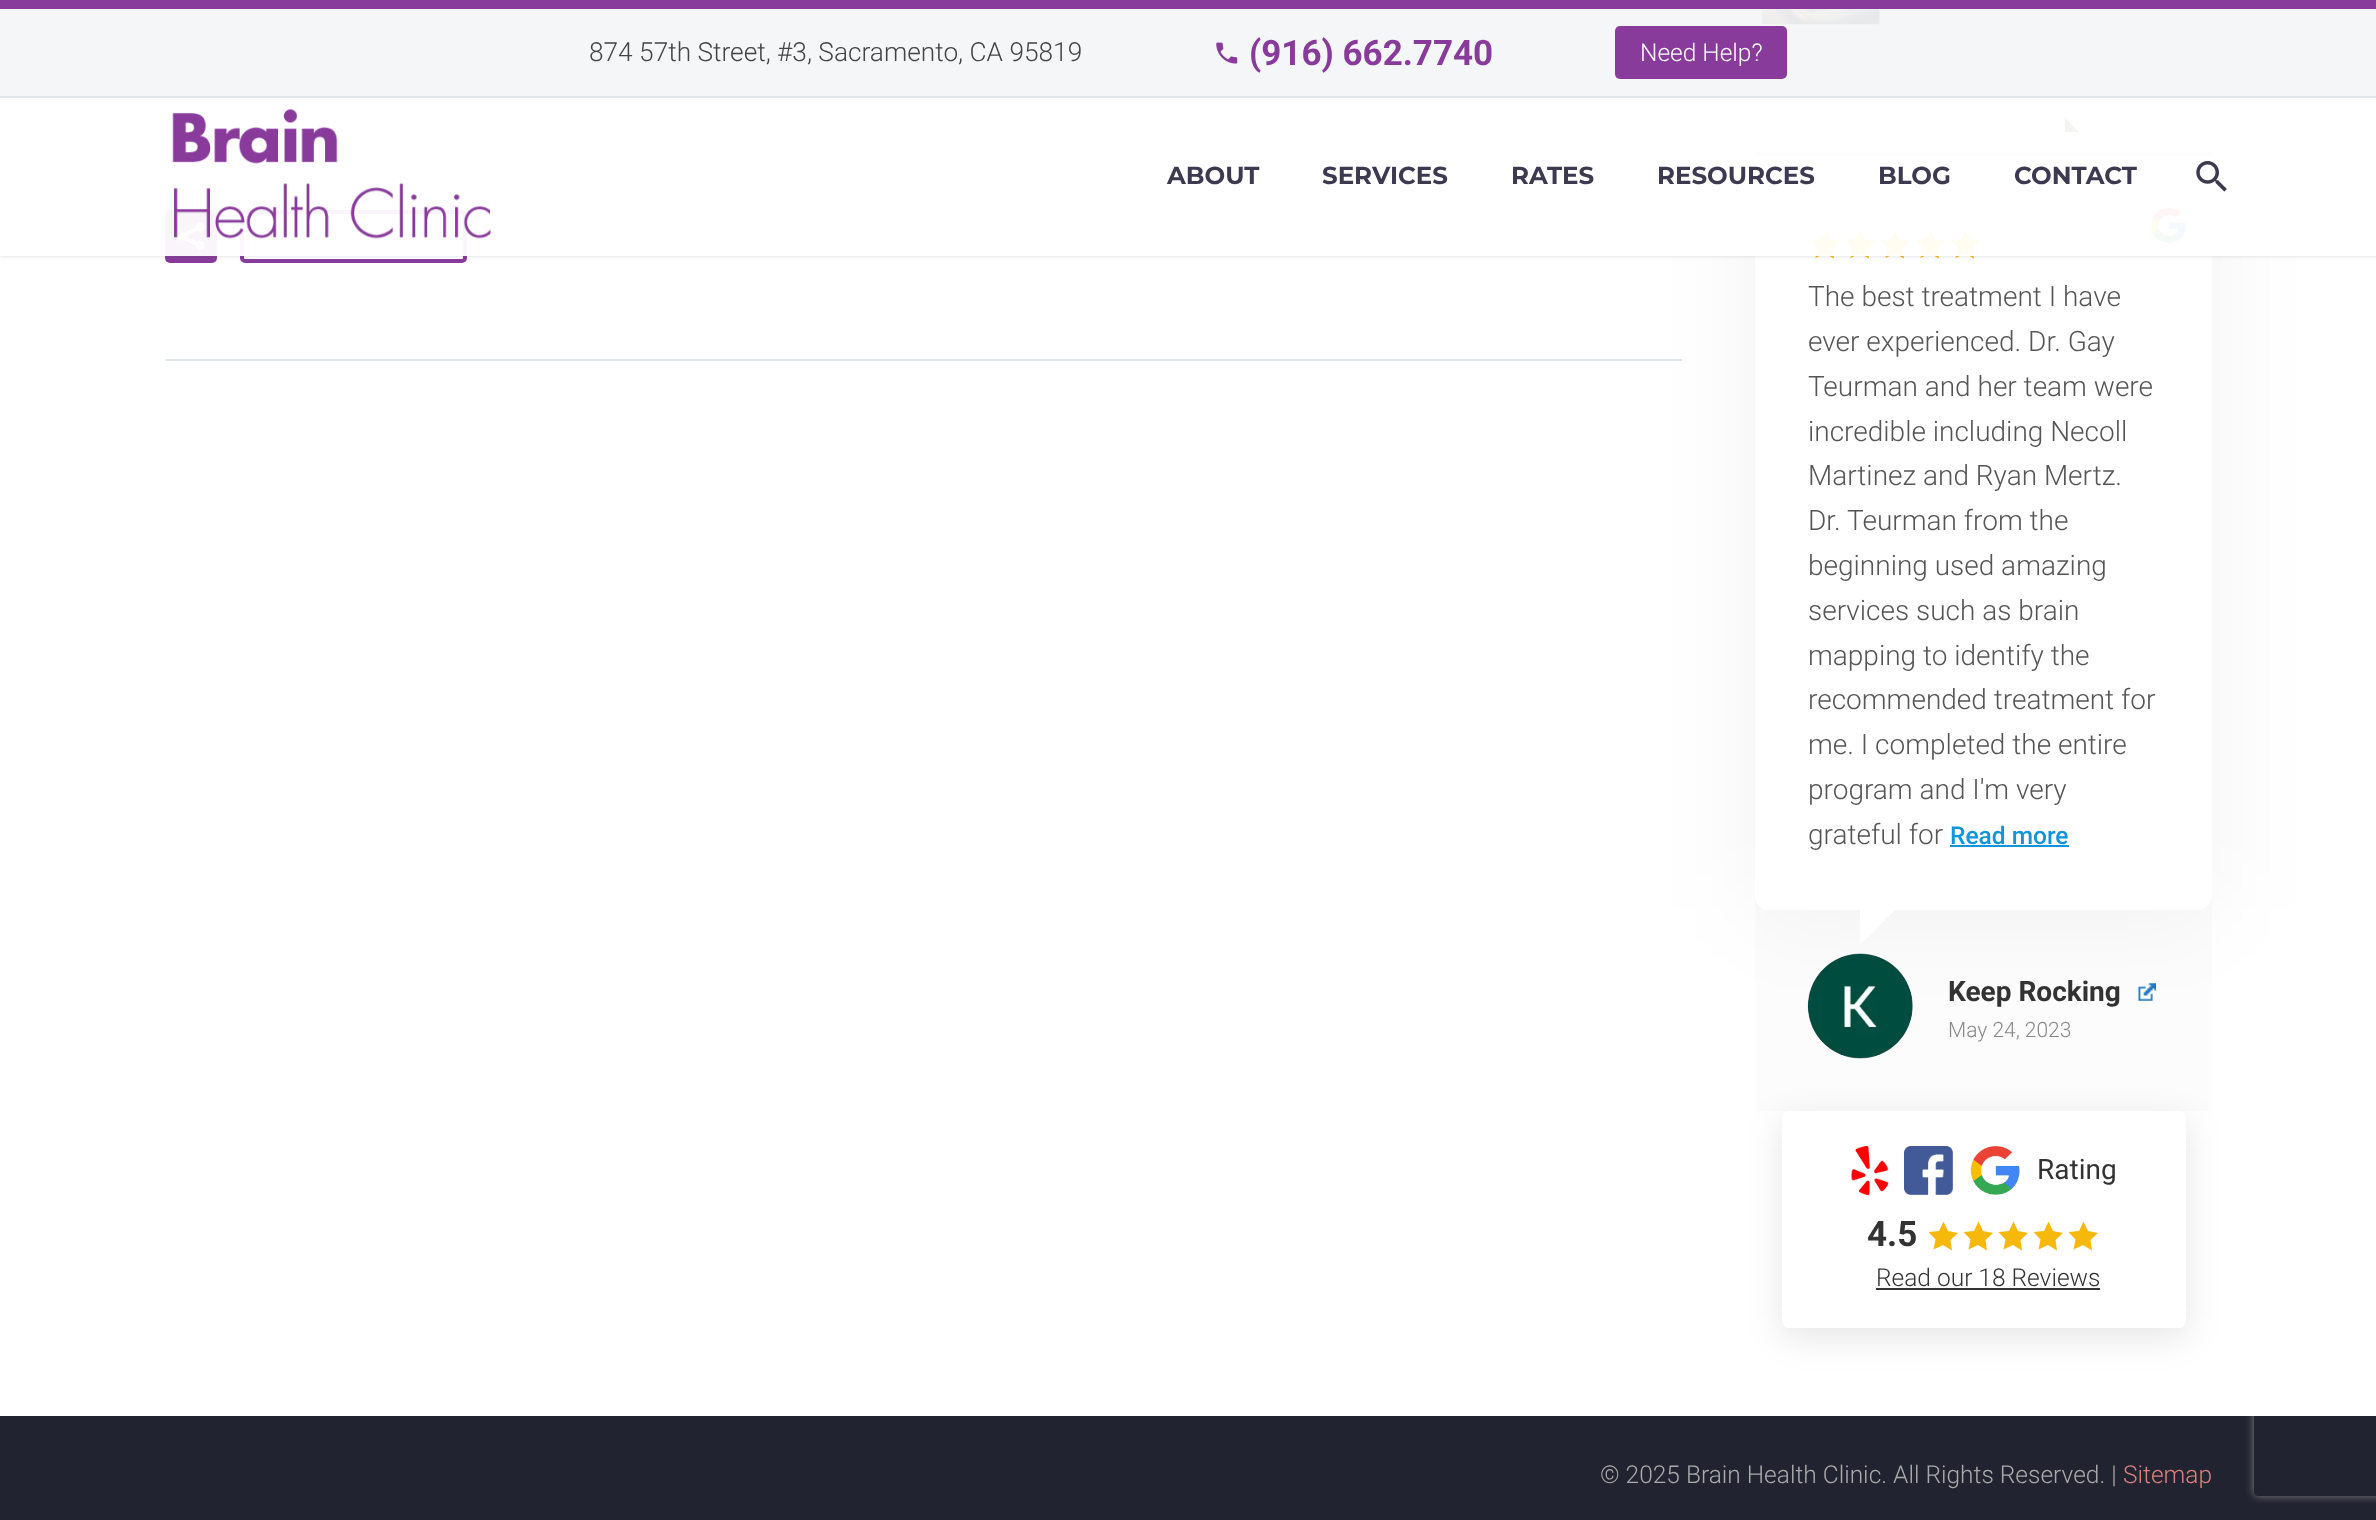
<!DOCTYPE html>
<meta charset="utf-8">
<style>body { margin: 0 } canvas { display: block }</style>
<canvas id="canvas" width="2376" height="1520"></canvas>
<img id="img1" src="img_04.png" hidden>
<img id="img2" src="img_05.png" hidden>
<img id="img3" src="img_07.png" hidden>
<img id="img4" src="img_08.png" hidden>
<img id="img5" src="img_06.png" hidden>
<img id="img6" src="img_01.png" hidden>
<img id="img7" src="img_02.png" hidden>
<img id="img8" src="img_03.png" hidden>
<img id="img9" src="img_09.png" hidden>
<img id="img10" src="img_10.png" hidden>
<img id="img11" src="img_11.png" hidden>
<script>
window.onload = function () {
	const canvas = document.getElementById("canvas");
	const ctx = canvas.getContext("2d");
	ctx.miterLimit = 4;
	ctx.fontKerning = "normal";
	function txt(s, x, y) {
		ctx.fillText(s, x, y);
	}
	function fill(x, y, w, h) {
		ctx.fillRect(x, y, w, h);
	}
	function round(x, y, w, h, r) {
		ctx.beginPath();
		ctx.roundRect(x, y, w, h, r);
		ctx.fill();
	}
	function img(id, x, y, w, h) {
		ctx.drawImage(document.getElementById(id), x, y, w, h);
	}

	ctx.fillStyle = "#212331";
	fill(0, 0, 2376, 1520);
	ctx.save();
	ctx.beginPath();
	ctx.moveTo(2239, 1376);
	ctx.lineTo(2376, 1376);
	ctx.lineTo(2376, 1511);
	ctx.lineTo(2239, 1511);
	ctx.closePath();
	ctx.moveTo(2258, 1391);
	ctx.lineTo(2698, 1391);
	ctx.bezierCurveTo(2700, 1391, 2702, 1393, 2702, 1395);
	ctx.lineTo(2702, 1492);
	ctx.bezierCurveTo(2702, 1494, 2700, 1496, 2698, 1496);
	ctx.lineTo(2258, 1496);
	ctx.bezierCurveTo(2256, 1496, 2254, 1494, 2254, 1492);
	ctx.lineTo(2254, 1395);
	ctx.bezierCurveTo(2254, 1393, 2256, 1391, 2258, 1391);
	ctx.closePath();
	ctx.clip("evenodd");
	ctx.fillStyle = "#808080";
	ctx.filter = "blur(4.5px)";
	ctx.beginPath();
	ctx.roundRect(2254, 1391, 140, 105, 4);
	ctx.fill();
	ctx.filter = "none";
	ctx.restore();
	ctx.fillStyle = "#FFFFFF";
	fill(0, 9, 2376, 1407);
	ctx.fillStyle = "#893B9C";
	round(165, 210, 52, 53, 5);
	img("img1", 176, 222, 29, 29);
	ctx.beginPath();
	ctx.roundRect(242, 212, 223, 49, 3);
	ctx.strokeStyle = "#893B9C";
	ctx.lineWidth = 4;
	ctx.stroke();
	ctx.fillStyle = "#EEEEEE";
	fill(1787, 53, 425, 2);
	ctx.strokeStyle = "#EEEEEE";
	ctx.lineWidth = 2;
	ctx.strokeRect(1756, -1, 130, 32);
	img("img2", 1762, 9, 118, 16);
	ctx.fillStyle = "#F4F6F7";
	fill(1755, 89, 457, 63);
	ctx.fillStyle = "#DBDBDB";
	fill(1755, 152, 457, 4);
	ctx.fillStyle = "#5B181B";
	ctx.beginPath();
	ctx.moveTo(2065, 118);
	ctx.lineTo(2065, 132);
	ctx.lineTo(2079, 132);
	ctx.closePath();
	ctx.fill();
	ctx.fillStyle = "#FCFCFC";
	fill(1755, 173, 457, 938);
	ctx.fillStyle = "#DFE5E8";
	fill(165, 359, 1517, 2);
	img("img3", 1807, 953, 106, 106);
	img("img4", 2138, 983, 18, 18);
	ctx.fillStyle = "rgba(0, 0, 0, 0.05)";
	ctx.filter = "blur(50px)";
	ctx.beginPath();
	ctx.roundRect(1755, 173, 457, 737, 14);
	ctx.fill();
	ctx.filter = "none";
	ctx.fillStyle = "#FFFFFF";
	round(1755, 173, 457, 737, 14);
	ctx.fillStyle = "#F7B80C";
	ctx.beginPath();
	ctx.moveTo(1825, 253.5);
	ctx.lineTo(1815.5, 258);
	ctx.lineTo(1817.5, 247.5);
	ctx.lineTo(1810.5, 240);
	ctx.lineTo(1821, 239);
	ctx.lineTo(1826, 230);
	ctx.lineTo(1830, 239.5);
	ctx.lineTo(1840.5, 241);
	ctx.lineTo(1832.5, 248.5);
	ctx.lineTo(1834, 258.5);
	ctx.closePath();
	ctx.fill();
	ctx.beginPath();
	ctx.moveTo(1860, 253.5);
	ctx.lineTo(1850.5, 258);
	ctx.lineTo(1852.5, 247.5);
	ctx.lineTo(1845.5, 240);
	ctx.lineTo(1856, 239);
	ctx.lineTo(1861, 230);
	ctx.lineTo(1865, 239.5);
	ctx.lineTo(1875.5, 241);
	ctx.lineTo(1867.5, 248.5);
	ctx.lineTo(1869, 258.5);
	ctx.closePath();
	ctx.fill();
	ctx.beginPath();
	ctx.moveTo(1895, 253.5);
	ctx.lineTo(1885.5, 258);
	ctx.lineTo(1887.5, 247.5);
	ctx.lineTo(1880.5, 240);
	ctx.lineTo(1891, 239);
	ctx.lineTo(1896, 230);
	ctx.lineTo(1900, 239.5);
	ctx.lineTo(1910.5, 241);
	ctx.lineTo(1902.5, 248.5);
	ctx.lineTo(1904, 258.5);
	ctx.closePath();
	ctx.fill();
	ctx.beginPath();
	ctx.moveTo(1930, 253.5);
	ctx.lineTo(1920.5, 258);
	ctx.lineTo(1922.5, 247.5);
	ctx.lineTo(1915.5, 240);
	ctx.lineTo(1926, 239);
	ctx.lineTo(1931, 230);
	ctx.lineTo(1935, 239.5);
	ctx.lineTo(1945.5, 241);
	ctx.lineTo(1937.5, 248.5);
	ctx.lineTo(1939, 258.5);
	ctx.closePath();
	ctx.fill();
	ctx.beginPath();
	ctx.moveTo(1965, 253.5);
	ctx.lineTo(1955.5, 258);
	ctx.lineTo(1957.5, 247.5);
	ctx.lineTo(1950.5, 240);
	ctx.lineTo(1961, 239);
	ctx.lineTo(1966, 230);
	ctx.lineTo(1970, 239.5);
	ctx.lineTo(1980.5, 241);
	ctx.lineTo(1972.5, 248.5);
	ctx.lineTo(1974, 258.5);
	ctx.closePath();
	ctx.fill();
	img("img5", 2150, 208, 36, 35);
	ctx.save();
	ctx.beginPath();
	ctx.moveTo(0, 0);
	ctx.lineTo(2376, 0);
	ctx.lineTo(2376, 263);
	ctx.lineTo(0, 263);
	ctx.closePath();
	ctx.moveTo(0, 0);
	ctx.lineTo(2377, 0);
	ctx.lineTo(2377, 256);
	ctx.lineTo(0, 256);
	ctx.closePath();
	ctx.clip("evenodd");
	ctx.fillStyle = "rgba(56, 69, 84, 0.2)";
	ctx.filter = "blur(2px)";
	ctx.beginPath();
	ctx.rect(0, 0, 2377, 256);
	ctx.fill();
	ctx.filter = "none";
	ctx.restore();
	ctx.fillStyle = "rgba(244, 246, 247, 0.95)";
	fill(0, 9, 2376, 87);
	ctx.fillStyle = "#893B9C";
	fill(0, 0, 2376, 9);
	ctx.fillStyle = "#DFE5E8";
	fill(0, 96, 2376, 2);
	img("img6", 1216, 42, 22, 22);
	ctx.fillStyle = "#893B9C";
	round(1615, 26, 172, 53, 5);
	ctx.fillStyle = "rgba(255, 255, 255, 0.95)";
	fill(0, 98, 2376, 158);
	img("img7", 172, 109, 319, 130);
	img("img8", 2196, 161, 31, 31);
	ctx.fillStyle = "#1194DC";
	fill(1950, 845, 119, 2);
	ctx.fillStyle = "#FFFFFF";
	ctx.beginPath();
	ctx.moveTo(1860, 910);
	ctx.lineTo(1895, 910);
	ctx.lineTo(1860, 945);
	ctx.closePath();
	ctx.fill();
	ctx.fillStyle = "rgba(0, 0, 0, 0.1)";
	ctx.filter = "blur(17.5px)";
	ctx.beginPath();
	ctx.roundRect(1782, 1120, 404, 217, 7);
	ctx.fill();
	ctx.filter = "none";
	ctx.fillStyle = "#FFFFFF";
	round(1782, 1111, 404, 217, 7);
	img("img9", 1851, 1146, 38, 49);
	img("img10", 1904, 1146, 49, 49);
	img("img11", 1970, 1146, 50, 49);
	ctx.fillStyle = "#F7B80C";
	ctx.beginPath();
	ctx.moveTo(1943, 1245);
	ctx.lineTo(1933.5, 1249.5);
	ctx.lineTo(1935.5, 1239.5);
	ctx.lineTo(1928.5, 1232);
	ctx.lineTo(1939, 1231);
	ctx.lineTo(1943.5, 1221.5);
	ctx.lineTo(1948, 1231);
	ctx.lineTo(1958, 1233);
	ctx.lineTo(1950.5, 1240);
	ctx.lineTo(1952, 1250.5);
	ctx.closePath();
	ctx.fill();
	ctx.beginPath();
	ctx.moveTo(1978, 1245);
	ctx.lineTo(1968.5, 1249.5);
	ctx.lineTo(1970.5, 1239.5);
	ctx.lineTo(1963.5, 1232);
	ctx.lineTo(1974, 1231);
	ctx.lineTo(1978.5, 1221.5);
	ctx.lineTo(1983, 1231);
	ctx.lineTo(1993, 1233);
	ctx.lineTo(1985.5, 1240);
	ctx.lineTo(1987, 1250.5);
	ctx.closePath();
	ctx.fill();
	ctx.beginPath();
	ctx.moveTo(2013, 1245);
	ctx.lineTo(2003.5, 1249.5);
	ctx.lineTo(2005.5, 1239.5);
	ctx.lineTo(1998.5, 1232);
	ctx.lineTo(2009, 1231);
	ctx.lineTo(2013.5, 1221.5);
	ctx.lineTo(2018, 1231);
	ctx.lineTo(2028, 1233);
	ctx.lineTo(2020.5, 1240);
	ctx.lineTo(2022, 1250.5);
	ctx.closePath();
	ctx.fill();
	ctx.beginPath();
	ctx.moveTo(2048, 1245);
	ctx.lineTo(2038.5, 1249.5);
	ctx.lineTo(2040.5, 1239.5);
	ctx.lineTo(2033.5, 1232);
	ctx.lineTo(2044, 1231);
	ctx.lineTo(2048.5, 1221.5);
	ctx.lineTo(2053, 1231);
	ctx.lineTo(2063, 1233);
	ctx.lineTo(2055.5, 1240);
	ctx.lineTo(2057, 1250.5);
	ctx.closePath();
	ctx.fill();
	ctx.beginPath();
	ctx.moveTo(2083, 1245);
	ctx.lineTo(2073.5, 1249.5);
	ctx.lineTo(2075.5, 1239.5);
	ctx.lineTo(2068.5, 1232);
	ctx.lineTo(2079, 1231);
	ctx.lineTo(2083.5, 1221.5);
	ctx.lineTo(2088, 1231);
	ctx.lineTo(2098, 1233);
	ctx.lineTo(2090.5, 1240);
	ctx.lineTo(2092, 1250.5);
	ctx.closePath();
	ctx.fill();
	ctx.fillStyle = "#333333";
	fill(1876, 1288, 224, 2);
	ctx.font = "300 26.25px Roboto";
	ctx.fillStyle = "#444444";
	txt("874 57th Street, #3, Sacramento, CA 95819", 589, 61);
	ctx.font = "bold 35px Roboto";
	ctx.fillStyle = "#893B9C";
	txt("(916) 662.7740", 1249, 65);
	ctx.font = "300 24.5px Roboto";
	ctx.fillStyle = "#FFFFFF";
	txt("Need Help?", 1640, 61);
	ctx.font = "bold 24.5px Montserrat";
	ctx.fillStyle = "#3C3950";
	txt("ABOUT", 1167, 184);
	txt("SERVICES", 1322, 184);
	txt("RATES", 1511, 184);
	txt("RESOURCES", 1657, 184);
	txt("BLOG", 1878, 184);
	txt("CONTACT", 2014, 184);
	ctx.font = "300 28px Roboto";
	ctx.fillStyle = "#555555";
	txt("The best treatment I have", 1808, 306);
	txt("ever experienced. Dr. Gay", 1808, 351);
	txt("Teurman and her team were", 1808, 396);
	txt("incredible including Necoll", 1808, 441);
	txt("Martinez and Ryan Mertz.", 1808, 485);
	txt("Dr. Teurman from the", 1808, 530);
	txt("beginning used amazing", 1808, 575);
	txt("services such as brain", 1808, 620);
	txt("mapping to identify the", 1808, 665);
	txt("recommended treatment for", 1808, 709);
	txt("me. I completed the entire", 1808, 754);
	txt("program and I'm very", 1808, 799);
	txt("grateful for", 1808, 844);
	ctx.font = "500 24.5px Roboto";
	ctx.fillStyle = "#1194DC";
	txt("Read more", 1950, 844);
	ctx.font = "bold 28px Roboto";
	ctx.fillStyle = "#333333";
	txt("Keep Rocking", 1948, 1001);
	ctx.font = "300 21px Roboto";
	ctx.fillStyle = "#888888";
	txt("May 24, 2023", 1948, 1037);
	ctx.font = "28px Roboto";
	ctx.fillStyle = "#333333";
	txt("Rating", 2037, 1179);
	ctx.font = "bold 35px Roboto";
	txt("4.5", 1867, 1246);
	ctx.font = "300 24.5px Roboto";
	txt("Read our 18 Reviews", 1876, 1286);
	ctx.fillStyle = "#AAAAAA";
	txt("© 2025 Brain Health Clinic. All Rights Reserved. |", 1600, 1483);
	ctx.fillStyle = "#DA817E";
	txt("Sitemap", 2123, 1483);
};
</script>
